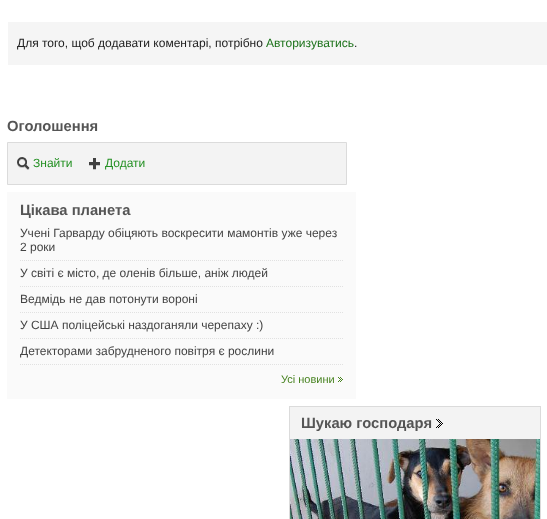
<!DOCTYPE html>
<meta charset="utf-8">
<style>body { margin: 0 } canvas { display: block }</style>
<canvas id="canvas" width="547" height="519"></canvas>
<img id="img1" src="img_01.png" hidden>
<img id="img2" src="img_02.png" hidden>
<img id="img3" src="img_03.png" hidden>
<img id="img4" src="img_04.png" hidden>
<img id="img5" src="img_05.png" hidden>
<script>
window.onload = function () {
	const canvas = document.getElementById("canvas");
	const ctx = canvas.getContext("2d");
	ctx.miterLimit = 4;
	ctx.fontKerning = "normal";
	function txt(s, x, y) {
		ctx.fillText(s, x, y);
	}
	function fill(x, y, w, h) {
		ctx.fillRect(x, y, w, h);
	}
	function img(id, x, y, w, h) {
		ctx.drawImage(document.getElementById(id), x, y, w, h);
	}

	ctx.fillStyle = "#FFFFFF";
	fill(0, 0, 547, 519);
	ctx.fillStyle = "#F5F5F5";
	fill(8, 22, 539, 43);
	ctx.fillStyle = "#F3F3F3";
	ctx.beginPath();
	ctx.rect(7.5, 142.5, 339, 42);
	ctx.fill();
	ctx.strokeStyle = "#DBDBDB";
	ctx.stroke();
	img("img1", 17, 157, 13, 13);
	img("img2", 89, 158, 11, 12);
	ctx.fillStyle = "#FAFAFA";
	fill(7, 192, 349, 207);
	ctx.beginPath();
	ctx.moveTo(20, 260.5);
	ctx.lineTo(343, 260.5);
	ctx.strokeStyle = "#E1E1E1";
	ctx.setLineDash([1, 1]);
	ctx.stroke();
	ctx.beginPath();
	ctx.moveTo(20, 286.5);
	ctx.lineTo(343, 286.5);
	ctx.stroke();
	ctx.beginPath();
	ctx.moveTo(20, 312.5);
	ctx.lineTo(343, 312.5);
	ctx.stroke();
	ctx.beginPath();
	ctx.moveTo(20, 338.5);
	ctx.lineTo(343, 338.5);
	ctx.stroke();
	ctx.beginPath();
	ctx.moveTo(20, 364.5);
	ctx.lineTo(343, 364.5);
	ctx.stroke();
	img("img3", 338, 377, 5, 5);
	ctx.fillStyle = "#F3F3F3";
	fill(290, 407, 250, 32);
	ctx.strokeStyle = "#DBDBDB";
	ctx.setLineDash([]);
	ctx.strokeRect(289.5, 406.5, 251, 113);
	img("img4", 436, 419, 7, 9);
	img("img5", 290, 439, 250, 80);
	ctx.font = "12px Liberation Sans";
	ctx.fillStyle = "#222222";
	txt("Для того, щоб додавати коментарі, потрібно", 17, 47);
	ctx.fillStyle = "#1C721A";
	txt("Авторизуватись", 266, 47);
	ctx.fillStyle = "#222222";
	txt(".", 354, 47);
	ctx.font = "bold 14.75px Liberation Sans";
	ctx.fillStyle = "#555555";
	txt("Оголошення", 7, 131);
	ctx.font = "12px Liberation Sans";
	ctx.fillStyle = "#259124";
	txt("Знайти", 33, 167);
	txt("Додати", 105, 167);
	ctx.font = "bold 14.75px Liberation Sans";
	ctx.fillStyle = "#555555";
	txt("Цікава планета", 20, 215);
	ctx.font = "12px Liberation Sans";
	ctx.fillStyle = "#444444";
	txt("Учені Гарварду обіцяють воскресити мамонтів уже через", 20, 237);
	txt("2 роки", 20, 251);
	txt("У світі є місто, де оленів більше, аніж людей", 20, 277);
	txt("Ведмідь не дав потонути вороні", 20, 303);
	txt("У США поліцейські наздоганяли черепаху :)", 20, 329);
	txt("Детекторами забрудненого повітря є рослини", 20, 355);
	ctx.font = "11px Liberation Sans";
	ctx.fillStyle = "#46821F";
	txt("Усі новини", 281, 383);
	ctx.font = "bold 14.75px Liberation Sans";
	ctx.fillStyle = "#555555";
	txt("Шукаю господаря", 301, 428);
};
</script>
